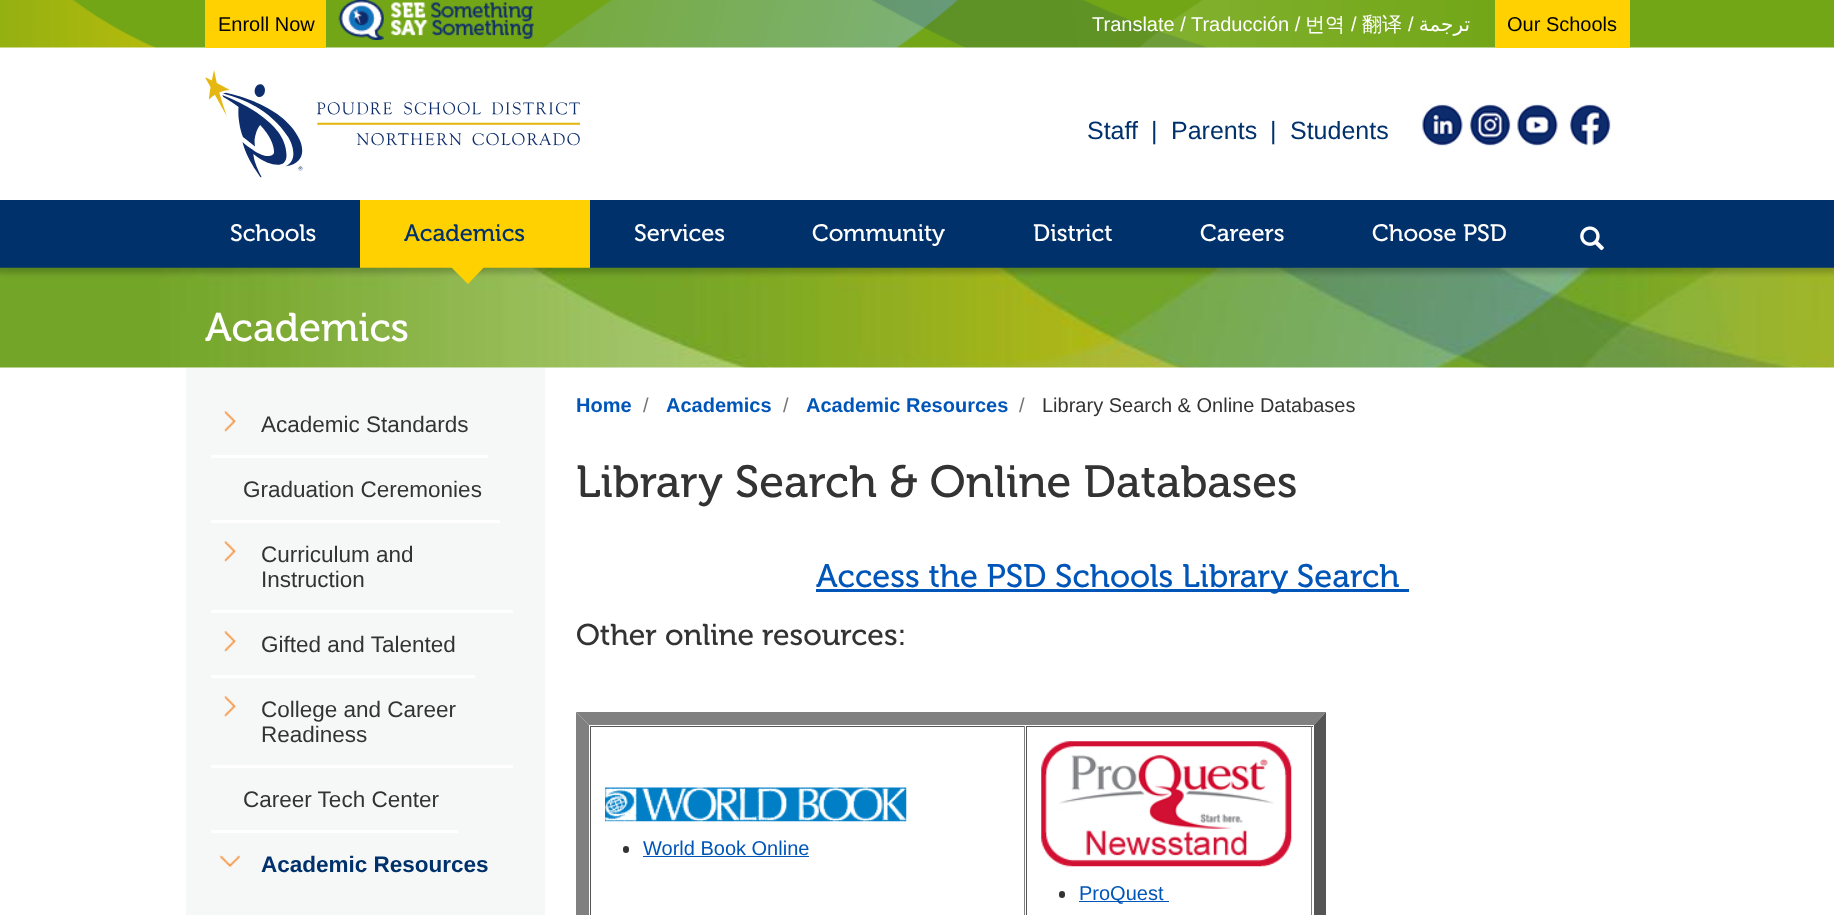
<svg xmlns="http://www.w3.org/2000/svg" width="1834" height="915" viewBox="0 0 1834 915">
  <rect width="100%" height="100%" fill="rgb(255,255,255)"/>
  <image x="0" y="0" width="1834" height="48" href="pic1.png"/>
  <rect x="205" y="0" width="121" height="48" fill="rgb(255,209,0)"/>
  <text x="218" y="31" font-family="Liberation Sans" font-size="20" fill="rgb(0,0,0)">Enroll Now</text>
  <image x="338" y="0" width="196" height="40" href="pic2.png"/>
  <text x="1092" y="31" font-family="Liberation Sans" font-size="20" fill="rgb(255,255,255)">Translate / Traducción /</text>
  <text x="1305" y="31" font-family="WenQuanYi Zen Hei" font-size="20" font-weight="500" fill="rgb(255,255,255)">번역</text>
  <text x="1351" y="31" font-family="Liberation Sans" font-size="20" fill="rgb(255,255,255)">/</text>
  <text x="1362" y="31" font-family="WenQuanYi Zen Hei" font-size="20" font-weight="500" fill="rgb(255,255,255)">翻译</text>
  <text x="1408" y="31" font-family="Liberation Sans" font-size="20" fill="rgb(255,255,255)">/</text>
  <text x="1470" y="31" font-family="DejaVu Sans" font-size="20" direction="rtl" fill="rgb(255,255,255)">ترجمة</text>
  <rect x="1495" y="0" width="135" height="48" fill="rgb(255,209,0)"/>
  <text x="1507" y="31" font-family="Liberation Sans" font-size="20" fill="rgb(0,0,0)">Our Schools</text>
  <image x="205" y="70" width="375" height="108" href="pic3.png"/>
  <g font-family="Liberation Sans" font-size="25" fill="rgb(0,49,107)">
    <text x="1087" y="139">Staff</text>
    <text x="1151" y="139">|</text>
    <text x="1171" y="139">Parents</text>
    <text x="1270" y="139">|</text>
    <text x="1290" y="139">Students</text>
  </g>
  <image x="1422" y="104" width="41" height="42" href="pic4.png"/>
  <image x="1469" y="104" width="42" height="42" href="pic5.png"/>
  <image x="1517" y="104" width="41" height="42" href="pic6.png"/>
  <image x="1569" y="104" width="42" height="42" href="pic7.png"/>
  <rect x="0" y="200" width="1834" height="68" fill="rgb(0,49,107)"/>
  <text x="230" y="241" font-family="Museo" font-size="23.75" fill="rgb(255,255,255)">Schools</text>
  <rect x="360" y="200" width="230" height="68" fill="rgb(255,209,1)"/>
  <text x="404" y="241" font-family="Museo" font-size="23.75" fill="rgb(0,49,107)">Academics</text>
  <image x="0" y="267" width="1834" height="101" href="pic9.png"/>
  <path d="M446 262H489L468 284Z" fill="rgb(255,209,0)"/>
  <g font-family="Museo" font-size="23.75" fill="rgb(255,255,255)">
    <text x="634" y="241">Services</text>
    <text x="812" y="241">Community</text>
    <text x="1033" y="241">District</text>
    <text x="1200" y="241">Careers</text>
    <text x="1372" y="241">Choose PSD</text>
  </g>
  <image x="1580" y="226" width="24" height="25" href="pic8.png"/>
  <text x="205" y="341" font-family="Museo" font-size="40" fill="rgb(255,255,255)">Academics</text>
  <rect x="186" y="368" width="359" height="547" fill="rgb(246,248,248)"/>
  <rect x="211" y="455" width="277" height="3" fill="rgb(255,255,255)"/>
  <image x="223" y="411" width="14" height="21" href="pic10.png"/>
  <text x="261" y="432" font-family="Liberation Sans" font-size="22.5" fill="rgb(51,51,51)">Academic Standards</text>
  <rect x="211" y="520" width="289" height="3" fill="rgb(255,255,255)"/>
  <text x="243" y="497" font-family="Liberation Sans" font-size="22.5" fill="rgb(51,51,51)">Graduation Ceremonies</text>
  <rect x="211" y="610" width="302" height="3" fill="rgb(255,255,255)"/>
  <image x="223" y="541" width="14" height="21" href="pic10.png"/>
  <g font-family="Liberation Sans" font-size="22.5" fill="rgb(51,51,51)">
    <text>
      <tspan x="261" y="562">Curriculum and</tspan>
      <tspan x="261" y="587">Instruction</tspan>
    </text>
  </g>
  <rect x="211" y="675" width="264" height="3" fill="rgb(255,255,255)"/>
  <image x="223" y="631" width="14" height="21" href="pic10.png"/>
  <text x="261" y="652" font-family="Liberation Sans" font-size="22.5" fill="rgb(51,51,51)">Gifted and Talented</text>
  <rect x="211" y="765" width="302" height="3" fill="rgb(255,255,255)"/>
  <image x="223" y="696" width="14" height="21" href="pic10.png"/>
  <g font-family="Liberation Sans" font-size="22.5" fill="rgb(51,51,51)">
    <text>
      <tspan x="261" y="717">College and Career</tspan>
      <tspan x="261" y="742">Readiness</tspan>
    </text>
  </g>
  <rect x="211" y="830" width="247" height="3" fill="rgb(255,255,255)"/>
  <text x="243" y="807" font-family="Liberation Sans" font-size="22.5" fill="rgb(51,51,51)">Career Tech Center</text>
  <image x="220" y="855" width="20" height="13" href="pic11.png"/>
  <text x="261" y="872" font-family="Liberation Sans" font-size="22.5" font-weight="bold" fill="rgb(0,49,107)">Academic Resources</text>
  <text x="576" y="412" font-family="Liberation Sans" font-size="20" font-weight="bold" fill="rgb(0,85,185)">Home</text>
  <text x="643" y="412" font-family="Liberation Sans" font-size="20" fill="rgb(117,117,117)">/</text>
  <text x="666" y="412" font-family="Liberation Sans" font-size="20" font-weight="bold" fill="rgb(0,85,185)">Academics</text>
  <text x="783" y="412" font-family="Liberation Sans" font-size="20" fill="rgb(117,117,117)">/</text>
  <text x="806" y="412" font-family="Liberation Sans" font-size="20" font-weight="bold" fill="rgb(0,85,185)">Academic Resources</text>
  <text x="1019" y="412" font-family="Liberation Sans" font-size="20" fill="rgb(117,117,117)">/</text>
  <text x="1042" y="412" font-family="Liberation Sans" font-size="20" fill="rgb(51,51,51)">Library Search &amp; Online Databases</text>
  <text x="576" y="497" font-family="Museo" font-size="45" fill="rgb(51,51,51)">Library Search &amp; Online Databases</text>
  <rect x="816" y="589" width="593" height="3" fill="rgb(0,85,185)"/>
  <text x="816" y="587" font-family="Museo" font-size="32.5" fill="rgb(0,85,185)">Access the PSD Schools Library Search</text>
  <text x="576" y="645" font-family="Museo" font-size="30" fill="rgb(51,51,51)">Other online resources:</text>
  <path d="M576 712H1326L1314 725H589Z" fill="rgb(128,128,128)"/>
  <path d="M1326 712V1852L1314 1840V725Z" fill="rgb(85,85,85)"/>
  <path d="M576 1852V712L589 725V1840Z" fill="rgb(128,128,128)"/>
  <rect x="590" y="726" width="435" height="1" fill="rgb(85,85,85)"/>
  <rect x="1024" y="726" width="1" height="189" fill="rgb(128,128,128)"/>
  <rect x="590" y="726" width="1" height="189" fill="rgb(85,85,85)"/>
  <image x="605" y="787" width="302" height="35" href="pic12.png"/>
  <rect x="623" y="846" width="6" height="7" rx="3" fill="rgb(51,51,51)"/>
  <text x="643" y="855" font-family="Liberation Sans" font-size="20" fill="rgb(0,85,185)">World Book Online</text>
  <rect x="643" y="856" width="166" height="1" fill="rgb(0,85,185)"/>
  <rect x="1026" y="726" width="287" height="1" fill="rgb(85,85,85)"/>
  <rect x="1311" y="726" width="1" height="189" fill="rgb(128,128,128)"/>
  <rect x="1026" y="726" width="1" height="189" fill="rgb(85,85,85)"/>
  <image x="1041" y="741" width="251" height="126" href="pic13.png"/>
  <rect x="1059" y="891" width="6" height="7" rx="3" fill="rgb(51,51,51)"/>
  <rect x="1079" y="901" width="90" height="1" fill="rgb(0,85,185)"/>
  <text x="1079" y="900" font-family="Liberation Sans" font-size="20" fill="rgb(0,85,185)">ProQuest</text>
</svg>
